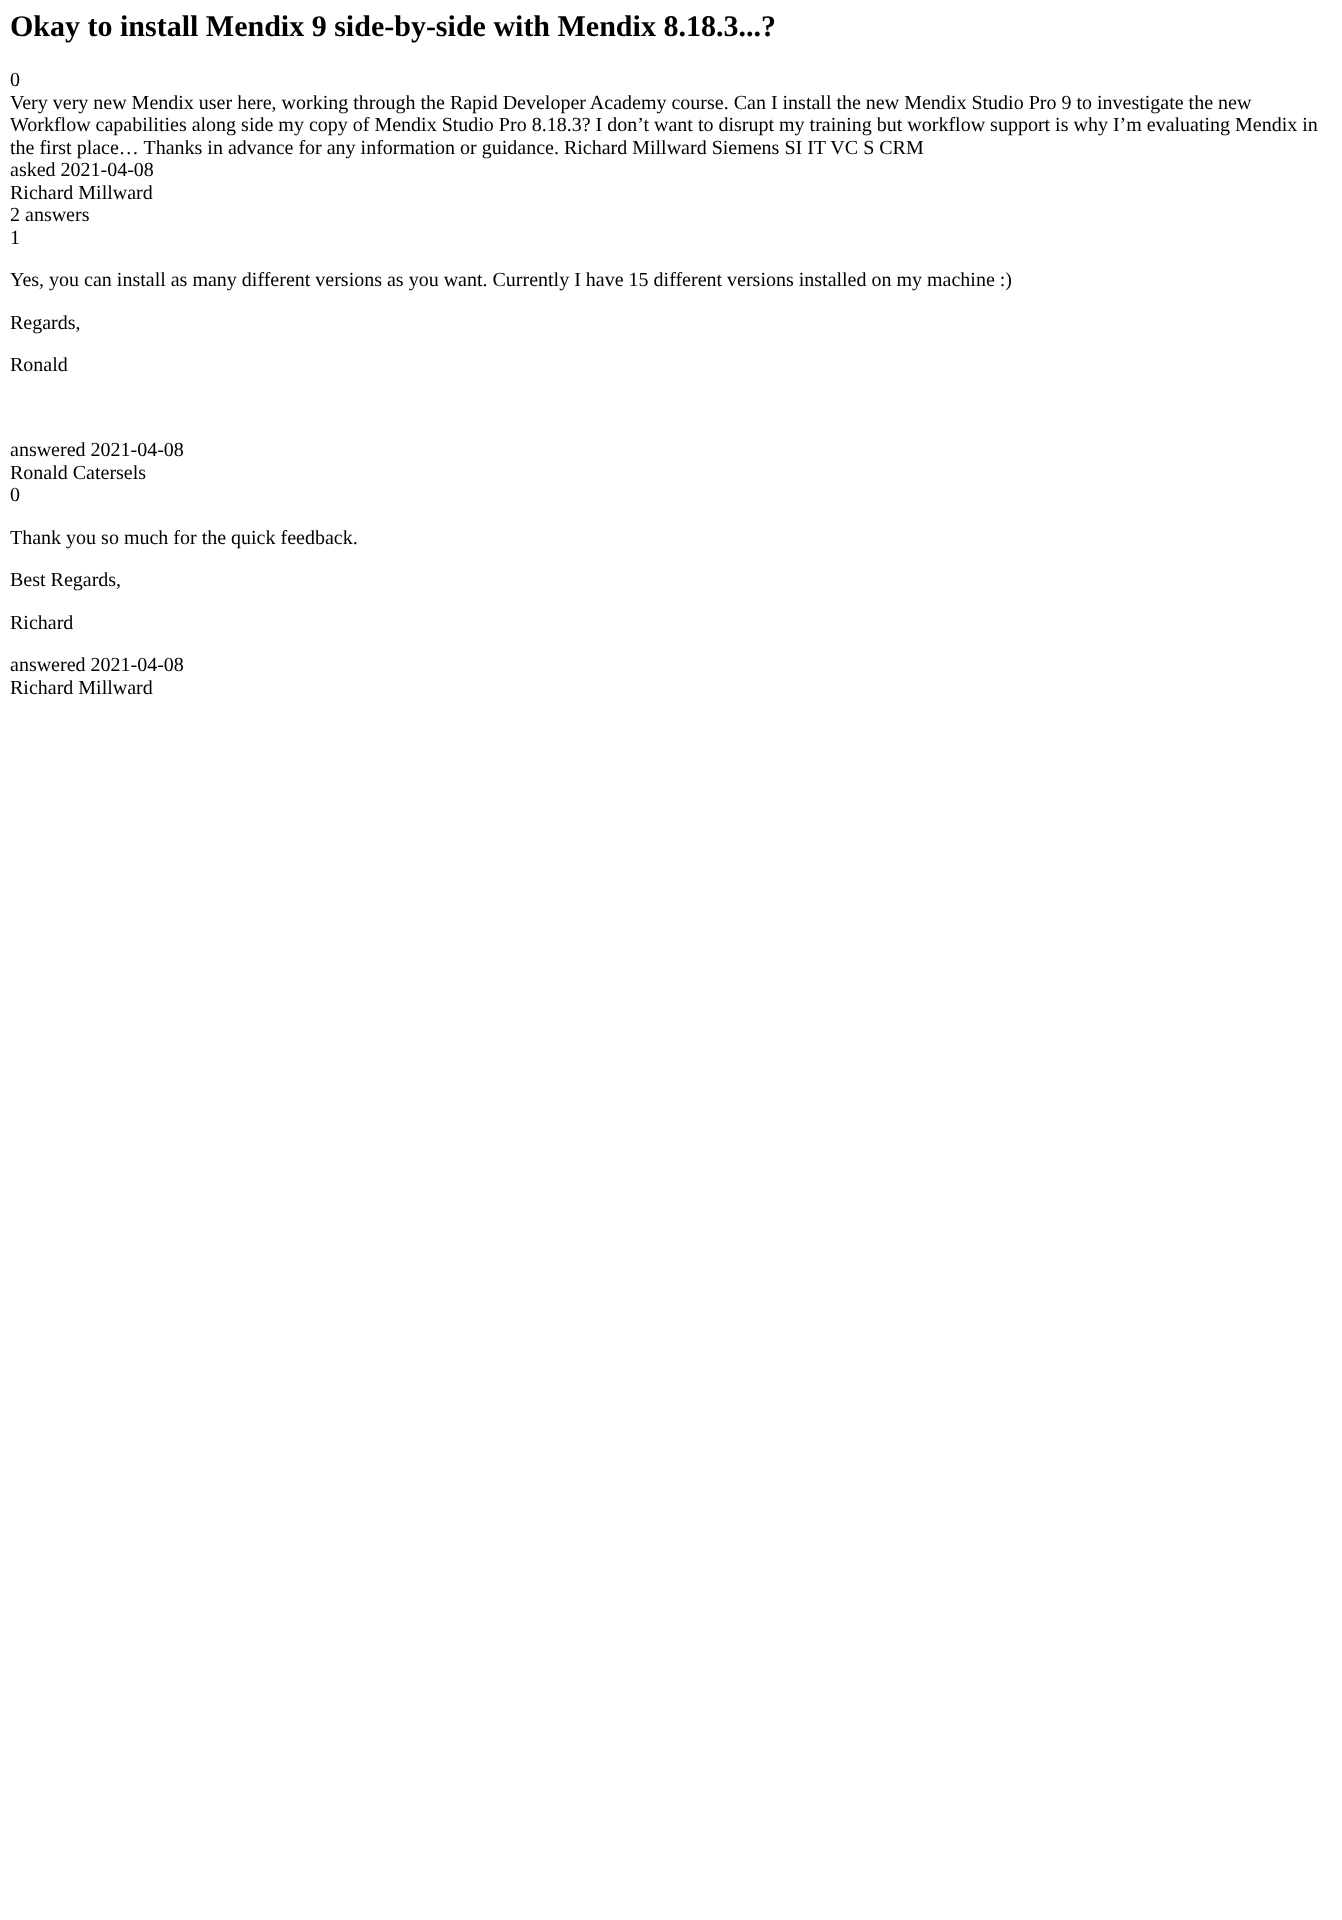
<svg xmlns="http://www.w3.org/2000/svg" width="1342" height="1920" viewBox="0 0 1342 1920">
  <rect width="100%" height="100%" fill="rgb(255,255,255)"/>
  <text x="10" y="36" font-family="Liberation Serif" font-size="30" font-weight="bold" fill="rgb(0,0,0)">Okay to install Mendix 9 side-by-side with Mendix 8.18.3...?</text>
  <g font-family="Liberation Serif" font-size="20" fill="rgb(0,0,0)">
    <text>
      <tspan x="10" y="86">0</tspan>
      <tspan x="10" y="109">Very very new Mendix user here, working through the Rapid Developer Academy course. Can I install the new Mendix Studio Pro 9 to investigate the new</tspan>
      <tspan x="10" y="131">Workflow capabilities along side my copy of Mendix Studio Pro 8.18.3? I don’t want to disrupt my training but workflow support is why I’m evaluating Mendix in</tspan>
      <tspan x="10" y="154">the first place… Thanks in advance for any information or guidance. Richard Millward Siemens SI IT VC S CRM</tspan>
      <tspan x="10" y="176">asked 2021-04-08</tspan>
      <tspan x="10" y="199">Richard Millward</tspan>
      <tspan x="10" y="221">2 answers</tspan>
      <tspan x="10" y="244">1</tspan>
    </text>
    <text x="10" y="286">Yes, you can install as many different versions as you want. Currently I have 15 different versions installed on my machine :)</text>
    <text x="10" y="329">Regards,</text>
    <text x="10" y="371">Ronald</text>
    <text>
      <tspan x="10" y="456">answered 2021-04-08</tspan>
      <tspan x="10" y="479">Ronald Catersels</tspan>
      <tspan x="10" y="501">0</tspan>
    </text>
    <text x="10" y="544">Thank you so much for the quick feedback.</text>
    <text x="10" y="586">Best Regards,</text>
    <text x="10" y="629">Richard</text>
    <text>
      <tspan x="10" y="671">answered 2021-04-08</tspan>
      <tspan x="10" y="694">Richard Millward</tspan>
    </text>
  </g>
</svg>
